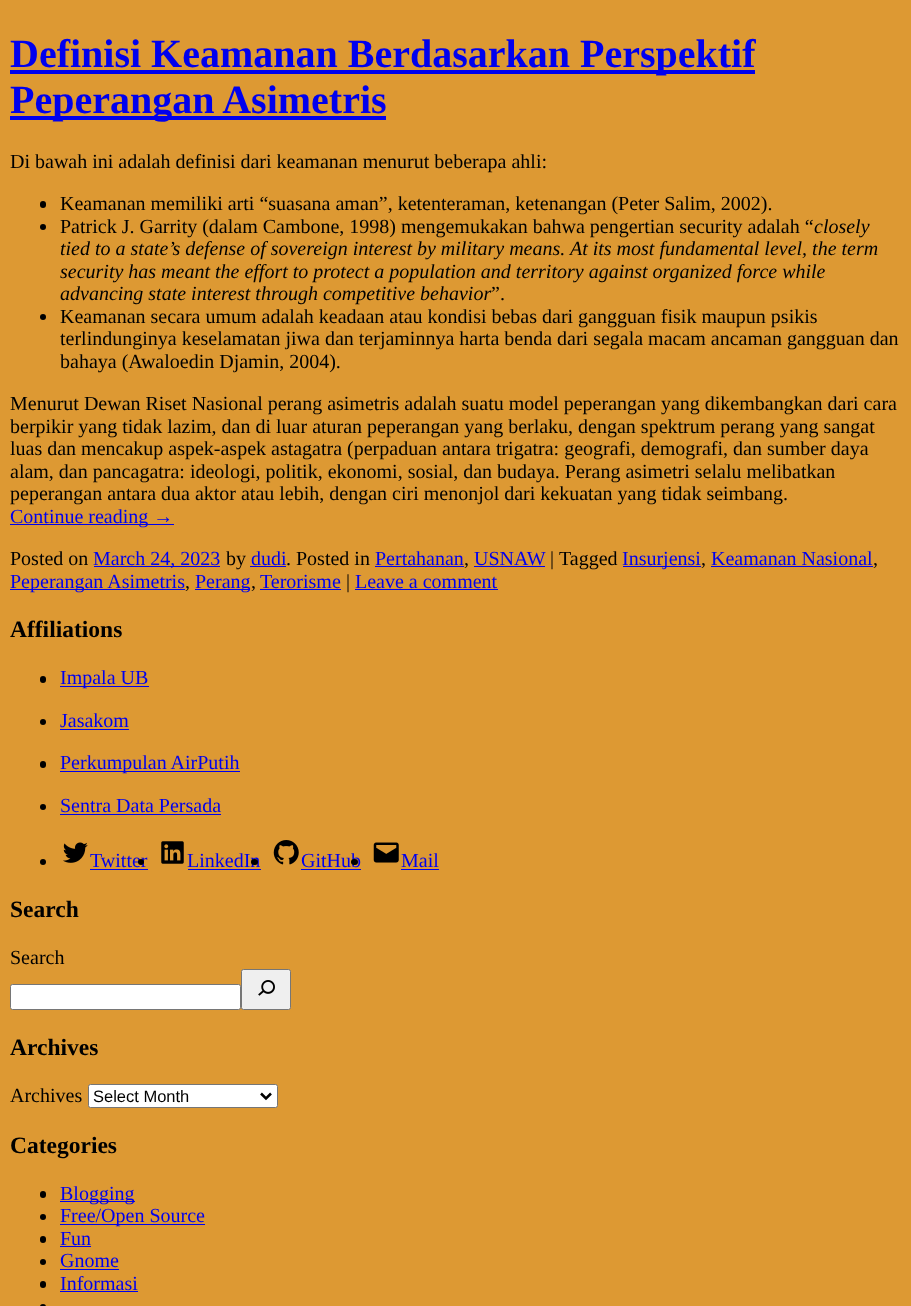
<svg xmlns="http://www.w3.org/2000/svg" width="911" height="1306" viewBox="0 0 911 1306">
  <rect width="100%" height="100%" fill="rgb(221,153,51)"/>
  <rect x="10" y="70" width="745" height="4" fill="rgb(0,0,238)"/>
  <text x="10" y="67" font-family="Liberation Serif" font-size="40" font-weight="bold" fill="rgb(0,0,238)">Definisi Keamanan Berdasarkan Perspektif</text>
  <rect x="10" y="116" width="376" height="4" fill="rgb(0,0,238)"/>
  <text x="10" y="113" font-family="Liberation Serif" font-size="40" font-weight="bold" fill="rgb(0,0,238)">Peperangan Asimetris</text>
  <text x="10" y="168" font-family="Liberation Serif" font-size="20" fill="rgb(0,0,0)">Di bawah ini adalah definisi dari keamanan menurut beberapa ahli:</text>
  <rect x="40" y="201" width="6" height="7" rx="3" fill="rgb(0,0,0)"/>
  <text x="60" y="210" font-family="Liberation Serif" font-size="20" fill="rgb(0,0,0)">Keamanan memiliki arti “suasana aman”, ketenteraman, ketenangan (Peter Salim, 2002).</text>
  <circle cx="43" cy="227" r="3" fill="rgb(0,0,0)"/>
  <text x="60" y="233" font-family="Liberation Serif" font-size="20" fill="rgb(0,0,0)">Patrick J. Garrity (dalam Cambone, 1998) mengemukakan bahwa pengertian security adalah “</text>
  <g font-family="Liberation Serif" font-size="20" font-style="italic" fill="rgb(0,0,0)">
    <text x="814" y="233">closely</text>
    <text>
      <tspan x="60" y="255">tied to a state’s defense of sovereign interest by military means. At its most fundamental level, the term</tspan>
      <tspan x="60" y="278">security has meant the effort to protect a population and territory against organized force while</tspan>
      <tspan x="60" y="300">advancing state interest through competitive behavior</tspan>
    </text>
  </g>
  <text x="491" y="300" font-family="Liberation Serif" font-size="20" fill="rgb(0,0,0)">”.</text>
  <circle cx="43" cy="317" r="3" fill="rgb(0,0,0)"/>
  <g font-family="Liberation Serif" font-size="20" fill="rgb(0,0,0)">
    <text>
      <tspan x="60" y="323">Keamanan secara umum adalah keadaan atau kondisi bebas dari gangguan fisik maupun psikis</tspan>
      <tspan x="60" y="345">terlindunginya keselamatan jiwa dan terjaminnya harta benda dari segala macam ancaman gangguan dan</tspan>
      <tspan x="60" y="368">bahaya (Awaloedin Djamin, 2004).</tspan>
    </text>
    <text>
      <tspan x="10" y="410">Menurut Dewan Riset Nasional perang asimetris adalah suatu model peperangan yang dikembangkan dari cara</tspan>
      <tspan x="10" y="433">berpikir yang tidak lazim, dan di luar aturan peperangan yang berlaku, dengan spektrum perang yang sangat</tspan>
      <tspan x="10" y="455">luas dan mencakup aspek-aspek astagatra (perpaduan antara trigatra: geografi, demografi, dan sumber daya</tspan>
      <tspan x="10" y="478">alam, dan pancagatra: ideologi, politik, ekonomi, sosial, dan budaya. Perang asimetri selalu melibatkan</tspan>
      <tspan x="10" y="500">peperangan antara dua aktor atau lebih, dengan ciri menonjol dari kekuatan yang tidak seimbang.</tspan>
    </text>
  </g>
  <rect x="10" y="524" width="164" height="1" fill="rgb(0,0,238)"/>
  <text x="10" y="523" font-family="Liberation Serif" font-size="20" fill="rgb(0,0,238)">Continue reading →</text>
  <text x="10" y="565" font-family="Liberation Serif" font-size="20" fill="rgb(0,0,0)">Posted on</text>
  <rect x="94" y="566" width="126" height="1" fill="rgb(0,0,238)"/>
  <text x="93" y="565" font-family="Liberation Serif" font-size="20" fill="rgb(0,0,238)">March 24, 2023</text>
  <text x="226" y="565" font-family="Liberation Serif" font-size="20" fill="rgb(0,0,0)">by</text>
  <rect x="250" y="566" width="36" height="1" fill="rgb(0,0,238)"/>
  <text x="251" y="565" font-family="Liberation Serif" font-size="20" fill="rgb(0,0,238)">dudi</text>
  <text x="286" y="565" font-family="Liberation Serif" font-size="20" fill="rgb(0,0,0)">. Posted in</text>
  <text x="375" y="565" font-family="Liberation Serif" font-size="20" fill="rgb(0,0,238)">Pertahanan</text>
  <text x="464" y="565" font-family="Liberation Serif" font-size="20" fill="rgb(0,0,0)">,</text>
  <rect x="375" y="566" width="89" height="1" fill="rgb(0,0,238)"/>
  <rect x="474" y="566" width="71" height="1" fill="rgb(0,0,238)"/>
  <text x="474" y="565" font-family="Liberation Serif" font-size="20" fill="rgb(0,0,238)">USNAW</text>
  <g font-family="Liberation Serif" font-size="20" fill="rgb(0,0,0)">
    <text x="550" y="565">|</text>
    <text x="559" y="565">Tagged</text>
  </g>
  <rect x="623" y="566" width="78" height="1" fill="rgb(0,0,238)"/>
  <text x="622" y="565" font-family="Liberation Serif" font-size="20" fill="rgb(0,0,238)">Insurjensi</text>
  <text x="701" y="565" font-family="Liberation Serif" font-size="20" fill="rgb(0,0,0)">,</text>
  <text x="711" y="565" font-family="Liberation Serif" font-size="20" fill="rgb(0,0,238)">Keamanan Nasional</text>
  <text x="873" y="565" font-family="Liberation Serif" font-size="20" fill="rgb(0,0,0)">,</text>
  <rect x="711" y="566" width="162" height="1" fill="rgb(0,0,238)"/>
  <rect x="10" y="589" width="175" height="1" fill="rgb(0,0,238)"/>
  <text x="10" y="588" font-family="Liberation Serif" font-size="20" fill="rgb(0,0,238)">Peperangan Asimetris</text>
  <text x="185" y="588" font-family="Liberation Serif" font-size="20" fill="rgb(0,0,0)">,</text>
  <rect x="195" y="589" width="55" height="1" fill="rgb(0,0,238)"/>
  <text x="195" y="588" font-family="Liberation Serif" font-size="20" fill="rgb(0,0,238)">Perang</text>
  <text x="251" y="588" font-family="Liberation Serif" font-size="20" fill="rgb(0,0,0)">,</text>
  <rect x="260" y="589" width="81" height="1" fill="rgb(0,0,238)"/>
  <text x="260" y="588" font-family="Liberation Serif" font-size="20" fill="rgb(0,0,238)">Terorisme</text>
  <text x="346" y="588" font-family="Liberation Serif" font-size="20" fill="rgb(0,0,0)">|</text>
  <text x="355" y="588" font-family="Liberation Serif" font-size="20" fill="rgb(0,0,238)">Leave a comment</text>
  <rect x="355" y="589" width="143" height="1" fill="rgb(0,0,238)"/>
  <text x="10" y="637" font-family="Liberation Serif" font-size="23.5" font-weight="bold" fill="rgb(0,0,0)">Affiliations</text>
  <rect x="40" y="676" width="6" height="7" rx="3" fill="rgb(0,0,0)"/>
  <rect x="60" y="686" width="89" height="1" fill="rgb(0,0,238)"/>
  <text x="60" y="684" font-family="Liberation Serif" font-size="20" fill="rgb(0,0,238)">Impala UB</text>
  <circle cx="43" cy="722" r="3" fill="rgb(0,0,0)"/>
  <text x="60" y="727" font-family="Liberation Serif" font-size="20" fill="rgb(0,0,238)">Jasakom</text>
  <rect x="60" y="729" width="69" height="1" fill="rgb(0,0,238)"/>
  <rect x="40" y="761" width="6" height="7" rx="3" fill="rgb(0,0,0)"/>
  <rect x="60" y="771" width="180" height="1" fill="rgb(0,0,238)"/>
  <text x="60" y="769" font-family="Liberation Serif" font-size="20" fill="rgb(0,0,238)">Perkumpulan AirPutih</text>
  <circle cx="43" cy="807" r="3" fill="rgb(0,0,0)"/>
  <text x="60" y="812" font-family="Liberation Serif" font-size="20" fill="rgb(0,0,238)">Sentra Data Persada</text>
  <rect x="60" y="814" width="161" height="1" fill="rgb(0,0,238)"/>
  <circle cx="43" cy="862" r="3" fill="rgb(0,0,0)"/>
  <image x="63" y="842" width="25" height="21" href="pic1.png"/>
  <text x="90" y="867" font-family="Liberation Serif" font-size="20" fill="rgb(0,0,238)">Twitter</text>
  <rect x="90" y="869" width="58" height="1" fill="rgb(0,0,238)"/>
  <circle cx="141" cy="862" r="3" fill="rgb(0,0,0)"/>
  <image x="161" y="841" width="23" height="23" href="pic2.png"/>
  <text x="187" y="867" font-family="Liberation Serif" font-size="20" fill="rgb(0,0,238)">LinkedIn</text>
  <rect x="188" y="869" width="73" height="1" fill="rgb(0,0,238)"/>
  <rect x="251" y="859" width="7" height="6" rx="3" fill="rgb(0,0,0)"/>
  <image x="273" y="840" width="26" height="25" href="pic3.png"/>
  <text x="301" y="867" font-family="Liberation Serif" font-size="20" fill="rgb(0,0,238)">GitHub</text>
  <rect x="301" y="869" width="60" height="1" fill="rgb(0,0,238)"/>
  <rect x="351" y="859" width="7" height="6" rx="3" fill="rgb(0,0,0)"/>
  <image x="373" y="842" width="26" height="21" href="pic4.png"/>
  <text x="401" y="867" font-family="Liberation Serif" font-size="20" fill="rgb(0,0,238)">Mail</text>
  <rect x="401" y="869" width="38" height="1" fill="rgb(0,0,238)"/>
  <text x="10" y="917" font-family="Liberation Serif" font-size="23.5" font-weight="bold" fill="rgb(0,0,0)">Search</text>
  <text x="10" y="964" font-family="Liberation Serif" font-size="20" fill="rgb(0,0,0)">Search</text>
  <rect x="10.5" y="984.5" width="230" height="25" rx="2" fill="rgb(255,255,255)" stroke="rgb(118,118,118)"/>
  <rect x="241.5" y="969.5" width="49" height="40" rx="2" fill="rgb(239,239,239)" stroke="rgb(118,118,118)"/>
  <image x="258" y="980" width="17" height="16" href="pic5.png"/>
  <text x="10" y="1055" font-family="Liberation Serif" font-size="23.5" font-weight="bold" fill="rgb(0,0,0)">Archives</text>
  <text x="10" y="1102" font-family="Liberation Serif" font-size="20" fill="rgb(0,0,0)">Archives</text>
  <rect x="88.5" y="1084.5" width="189" height="23" rx="2" fill="rgb(255,255,255)" stroke="rgb(118,118,118)"/>
  <path d="M261 1093.5L266 1098.5L271 1093.5" fill="none" stroke="rgb(0,0,0)" stroke-width="2.5"/>
  <text x="93" y="1102" font-family="Liberation Sans" font-size="16.5" fill="rgb(0,0,0)">Select Month</text>
  <text x="10" y="1153" font-family="Liberation Serif" font-size="23.5" font-weight="bold" fill="rgb(0,0,0)">Categories</text>
  <rect x="40" y="1191" width="6" height="7" rx="3" fill="rgb(0,0,0)"/>
  <rect x="60" y="1201" width="75" height="1" fill="rgb(0,0,238)"/>
  <text x="60" y="1200" font-family="Liberation Serif" font-size="20" fill="rgb(0,0,238)">Blogging</text>
  <circle cx="43" cy="1217" r="3" fill="rgb(0,0,0)"/>
  <rect x="60" y="1224" width="145" height="1" fill="rgb(0,0,238)"/>
  <text x="60" y="1222" font-family="Liberation Serif" font-size="20" fill="rgb(0,0,238)">Free/Open Source</text>
  <rect x="40" y="1236" width="6" height="7" rx="3" fill="rgb(0,0,0)"/>
  <text x="60" y="1245" font-family="Liberation Serif" font-size="20" fill="rgb(0,0,238)">Fun</text>
  <rect x="60" y="1246" width="31" height="1" fill="rgb(0,0,238)"/>
  <circle cx="43" cy="1262" r="3" fill="rgb(0,0,0)"/>
  <text x="60" y="1267" font-family="Liberation Serif" font-size="20" fill="rgb(0,0,238)">Gnome</text>
  <rect x="60" y="1269" width="59" height="1" fill="rgb(0,0,238)"/>
  <rect x="40" y="1281" width="6" height="7" rx="3" fill="rgb(0,0,0)"/>
  <text x="60" y="1290" font-family="Liberation Serif" font-size="20" fill="rgb(0,0,238)">Informasi</text>
  <rect x="60" y="1291" width="78" height="1" fill="rgb(0,0,238)"/>
  <rect x="40" y="1304" width="6" height="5" rx="3" fill="rgb(0,0,0)"/>
</svg>
